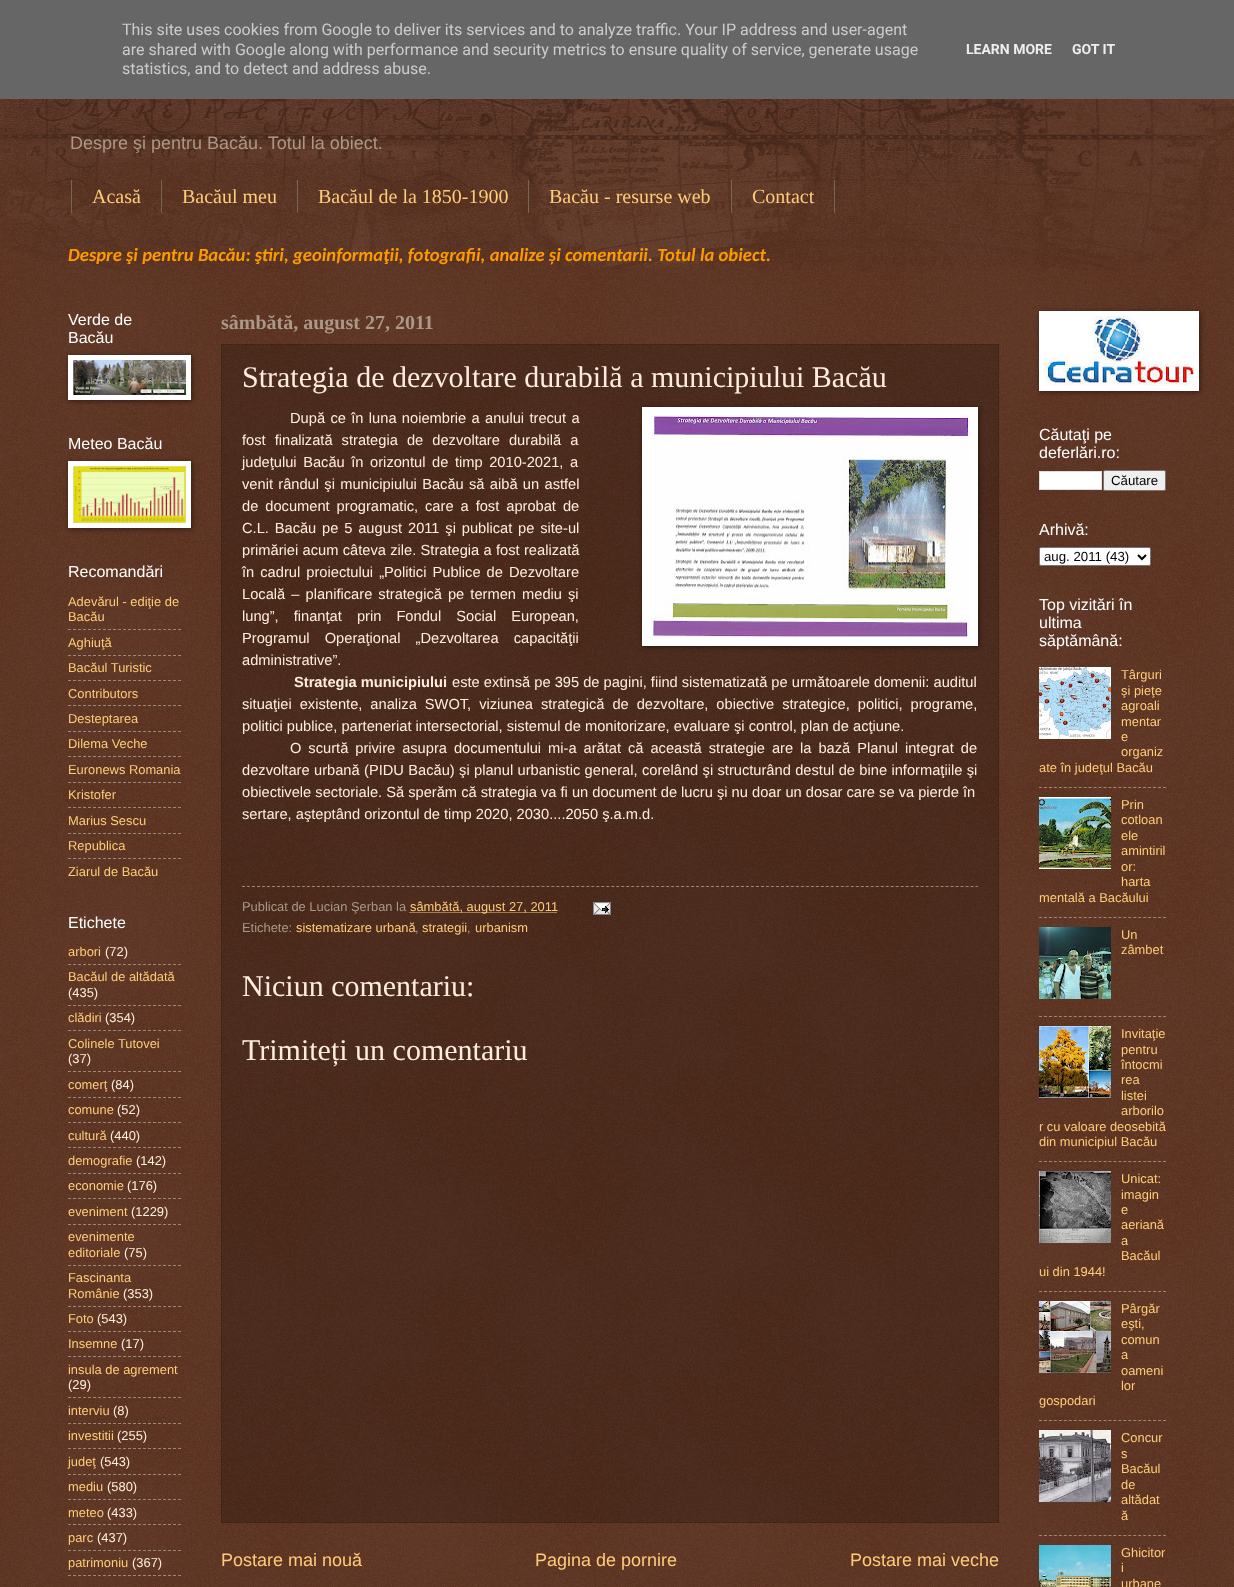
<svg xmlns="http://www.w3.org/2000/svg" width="1234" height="1587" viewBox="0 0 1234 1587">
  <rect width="100%" height="100%" fill="rgb(68,21,0)"/>
  <image x="0" y="99" width="1234" height="1488" href="pic1.png"/>
  <rect x="0" y="0" width="1234" height="99" fill="rgb(102,102,102)"/>
  <g font-family="Roboto" font-size="16" fill="rgb(204,204,204)">
    <text>
      <tspan x="122" y="35">This site uses cookies from Google to deliver its services and to analyze traffic. Your IP address and user-agent</tspan>
      <tspan x="122" y="55">are shared with Google along with performance and security metrics to ensure quality of service, generate usage</tspan>
      <tspan x="122" y="74">statistics, and to detect and address abuse.</tspan>
    </text>
  </g>
  <g font-family="Roboto" font-size="14" font-weight="bold" fill="rgb(238,238,238)">
    <text x="966" y="54">LEARN MORE</text>
    <text x="1072" y="54">GOT IT</text>
  </g>
  <image x="0" y="99" width="1234" height="171" href="pic2.png"/>
  <text x="70" y="149" font-family="Liberation Sans" font-size="18" fill="rgb(170,153,136)">Despre şi pentru Bacău. Totul la obiect.</text>
  <rect x="161" y="180" width="1" height="33" fill="rgb(119,102,85)"/>
  <rect x="71" y="180" width="1" height="33" fill="rgb(119,102,85)"/>
  <text x="92" y="203" font-family="Liberation Serif" font-size="20" fill="rgb(255,204,119)">Acasă</text>
  <rect x="297" y="180" width="1" height="33" fill="rgb(119,102,85)"/>
  <text x="182" y="203" font-family="Liberation Serif" font-size="20" fill="rgb(255,204,119)">Bacăul meu</text>
  <rect x="528" y="180" width="1" height="33" fill="rgb(119,102,85)"/>
  <text x="318" y="203" font-family="Liberation Serif" font-size="20" fill="rgb(255,204,119)">Bacăul de la 1850-1900</text>
  <rect x="731" y="180" width="1" height="33" fill="rgb(119,102,85)"/>
  <text x="549" y="203" font-family="Liberation Serif" font-size="20" fill="rgb(255,204,119)">Bacău - resurse web</text>
  <rect x="834" y="180" width="1" height="33" fill="rgb(119,102,85)"/>
  <text x="752" y="203" font-family="Liberation Serif" font-size="20" fill="rgb(255,204,119)">Contact</text>
  <text x="68" y="261" font-family="Carlito" font-size="18.65" font-weight="bold" font-style="italic" fill="rgb(255,153,0)">Despre şi pentru Bacău: ştiri, geoinformaţii, fotografii, analize și comentarii. Totul la obiect.</text>
  <g font-family="Arimo" font-size="16" fill="rgb(255,255,255)">
    <text>
      <tspan x="68" y="325">Verde de</tspan>
      <tspan x="68" y="343">Bacău</tspan>
    </text>
  </g>
  <rect x="69" y="356" width="123" height="45" fill="rgba(0,0,0,0.5)" filter="blur(2.5px)"/>
  <rect x="68" y="355" width="123" height="45" fill="rgb(255,255,255)"/>
  <image x="73" y="360" width="113" height="35" href="pic3.png"/>
  <text x="68" y="449" font-family="Arimo" font-size="16" fill="rgb(255,255,255)">Meteo Bacău</text>
  <rect x="69" y="462" width="123" height="67" fill="rgba(0,0,0,0.5)" filter="blur(2.5px)"/>
  <rect x="68" y="461" width="123" height="67" fill="rgb(255,255,255)"/>
  <image x="73" y="466" width="113" height="57" href="pic4.png"/>
  <text x="68" y="577" font-family="Arimo" font-size="16" fill="rgb(255,255,255)">Recomandări</text>
  <g font-family="Liberation Sans" font-size="12.9" fill="rgb(255,204,119)">
    <text>
      <tspan x="68" y="606">Adevărul - ediţie de</tspan>
      <tspan x="68" y="621">Bacău</tspan>
    </text>
  </g>
  <path d="M68 629.5H181" fill="none" stroke="rgb(153,136,119)" stroke-dasharray="3 2"/>
  <text x="68" y="647" font-family="Liberation Sans" font-size="12.9" fill="rgb(255,204,119)">Aghiuţă</text>
  <path d="M68 655.5H181" fill="none" stroke="rgb(153,136,119)" stroke-dasharray="3 2"/>
  <text x="68" y="672" font-family="Liberation Sans" font-size="12.9" fill="rgb(255,204,119)">Bacăul Turistic</text>
  <path d="M68 680.5H181" fill="none" stroke="rgb(153,136,119)" stroke-dasharray="3 2"/>
  <text x="68" y="698" font-family="Liberation Sans" font-size="12.9" fill="rgb(255,204,119)">Contributors</text>
  <path d="M68 705.5H181" fill="none" stroke="rgb(153,136,119)" stroke-dasharray="3 2"/>
  <text x="68" y="723" font-family="Liberation Sans" font-size="12.9" fill="rgb(255,204,119)">Desteptarea</text>
  <path d="M68 731.5H181" fill="none" stroke="rgb(153,136,119)" stroke-dasharray="3 2"/>
  <text x="68" y="748" font-family="Liberation Sans" font-size="12.9" fill="rgb(255,204,119)">Dilema Veche</text>
  <path d="M68 756.5H181" fill="none" stroke="rgb(153,136,119)" stroke-dasharray="3 2"/>
  <text x="68" y="774" font-family="Liberation Sans" font-size="12.9" fill="rgb(255,204,119)">Euronews Romania</text>
  <path d="M68 782.5H181" fill="none" stroke="rgb(153,136,119)" stroke-dasharray="3 2"/>
  <text x="68" y="799" font-family="Liberation Sans" font-size="12.9" fill="rgb(255,204,119)">Kristofer</text>
  <path d="M68 807.5H181" fill="none" stroke="rgb(153,136,119)" stroke-dasharray="3 2"/>
  <text x="68" y="825" font-family="Liberation Sans" font-size="12.9" fill="rgb(255,204,119)">Marius Sescu</text>
  <path d="M68 833.5H181" fill="none" stroke="rgb(153,136,119)" stroke-dasharray="3 2"/>
  <text x="68" y="850" font-family="Liberation Sans" font-size="12.9" fill="rgb(255,204,119)">Republica</text>
  <path d="M68 858.5H181" fill="none" stroke="rgb(153,136,119)" stroke-dasharray="3 2"/>
  <text x="68" y="876" font-family="Liberation Sans" font-size="12.9" fill="rgb(255,204,119)">Ziarul de Bacău</text>
  <text x="68" y="928" font-family="Arimo" font-size="16" fill="rgb(255,255,255)">Etichete</text>
  <text x="68" y="956" font-family="Liberation Sans" font-size="12.9" fill="rgb(255,204,119)">arbori</text>
  <text x="105" y="956" font-family="Liberation Sans" font-size="12.9" fill="rgb(255,238,221)">(72)</text>
  <path d="M68 964.5H181" fill="none" stroke="rgb(153,136,119)" stroke-dasharray="3 2"/>
  <text x="68" y="981" font-family="Liberation Sans" font-size="12.9" fill="rgb(255,204,119)">Bacăul de altădată</text>
  <text x="68" y="997" font-family="Liberation Sans" font-size="12.9" fill="rgb(255,238,221)">(435)</text>
  <path d="M68 1005.5H181" fill="none" stroke="rgb(153,136,119)" stroke-dasharray="3 2"/>
  <text x="68" y="1022" font-family="Liberation Sans" font-size="12.9" fill="rgb(255,204,119)">clădiri</text>
  <text x="105" y="1022" font-family="Liberation Sans" font-size="12.9" fill="rgb(255,238,221)">(354)</text>
  <path d="M68 1030.5H181" fill="none" stroke="rgb(153,136,119)" stroke-dasharray="3 2"/>
  <text x="68" y="1048" font-family="Liberation Sans" font-size="12.9" fill="rgb(255,204,119)">Colinele Tutovei</text>
  <text x="68" y="1063" font-family="Liberation Sans" font-size="12.9" fill="rgb(255,238,221)">(37)</text>
  <path d="M68 1071.5H181" fill="none" stroke="rgb(153,136,119)" stroke-dasharray="3 2"/>
  <text x="68" y="1089" font-family="Liberation Sans" font-size="12.9" fill="rgb(255,204,119)">comerţ</text>
  <text x="111" y="1089" font-family="Liberation Sans" font-size="12.9" fill="rgb(255,238,221)">(84)</text>
  <path d="M68 1097.5H181" fill="none" stroke="rgb(153,136,119)" stroke-dasharray="3 2"/>
  <text x="68" y="1114" font-family="Liberation Sans" font-size="12.9" fill="rgb(255,204,119)">comune</text>
  <text x="117" y="1114" font-family="Liberation Sans" font-size="12.9" fill="rgb(255,238,221)">(52)</text>
  <path d="M68 1122.5H181" fill="none" stroke="rgb(153,136,119)" stroke-dasharray="3 2"/>
  <text x="68" y="1140" font-family="Liberation Sans" font-size="12.9" fill="rgb(255,204,119)">cultură</text>
  <text x="110" y="1140" font-family="Liberation Sans" font-size="12.9" fill="rgb(255,238,221)">(440)</text>
  <path d="M68 1147.5H181" fill="none" stroke="rgb(153,136,119)" stroke-dasharray="3 2"/>
  <text x="68" y="1165" font-family="Liberation Sans" font-size="12.9" fill="rgb(255,204,119)">demografie</text>
  <text x="136" y="1165" font-family="Liberation Sans" font-size="12.9" fill="rgb(255,238,221)">(142)</text>
  <path d="M68 1173.5H181" fill="none" stroke="rgb(153,136,119)" stroke-dasharray="3 2"/>
  <text x="68" y="1190" font-family="Liberation Sans" font-size="12.9" fill="rgb(255,204,119)">economie</text>
  <text x="127" y="1190" font-family="Liberation Sans" font-size="12.9" fill="rgb(255,238,221)">(176)</text>
  <path d="M68 1198.5H181" fill="none" stroke="rgb(153,136,119)" stroke-dasharray="3 2"/>
  <text x="68" y="1216" font-family="Liberation Sans" font-size="12.9" fill="rgb(255,204,119)">eveniment</text>
  <text x="131" y="1216" font-family="Liberation Sans" font-size="12.9" fill="rgb(255,238,221)">(1229)</text>
  <path d="M68 1224.5H181" fill="none" stroke="rgb(153,136,119)" stroke-dasharray="3 2"/>
  <g font-family="Liberation Sans" font-size="12.9" fill="rgb(255,204,119)">
    <text>
      <tspan x="68" y="1241">evenimente</tspan>
      <tspan x="68" y="1257">editoriale</tspan>
    </text>
  </g>
  <text x="124" y="1257" font-family="Liberation Sans" font-size="12.9" fill="rgb(255,238,221)">(75)</text>
  <path d="M68 1265.5H181" fill="none" stroke="rgb(153,136,119)" stroke-dasharray="3 2"/>
  <g font-family="Liberation Sans" font-size="12.9" fill="rgb(255,204,119)">
    <text>
      <tspan x="68" y="1282">Fascinanta</tspan>
      <tspan x="68" y="1298">Românie</tspan>
    </text>
  </g>
  <text x="123" y="1298" font-family="Liberation Sans" font-size="12.9" fill="rgb(255,238,221)">(353)</text>
  <path d="M68 1306.5H181" fill="none" stroke="rgb(153,136,119)" stroke-dasharray="3 2"/>
  <text x="68" y="1323" font-family="Liberation Sans" font-size="12.9" fill="rgb(255,204,119)">Foto</text>
  <text x="97" y="1323" font-family="Liberation Sans" font-size="12.9" fill="rgb(255,238,221)">(543)</text>
  <path d="M68 1331.5H181" fill="none" stroke="rgb(153,136,119)" stroke-dasharray="3 2"/>
  <text x="68" y="1348" font-family="Liberation Sans" font-size="12.9" fill="rgb(255,204,119)">Insemne</text>
  <text x="121" y="1348" font-family="Liberation Sans" font-size="12.9" fill="rgb(255,238,221)">(17)</text>
  <path d="M68 1356.5H181" fill="none" stroke="rgb(153,136,119)" stroke-dasharray="3 2"/>
  <text x="68" y="1374" font-family="Liberation Sans" font-size="12.9" fill="rgb(255,204,119)">insula de agrement</text>
  <text x="68" y="1389" font-family="Liberation Sans" font-size="12.9" fill="rgb(255,238,221)">(29)</text>
  <path d="M68 1397.5H181" fill="none" stroke="rgb(153,136,119)" stroke-dasharray="3 2"/>
  <text x="68" y="1415" font-family="Liberation Sans" font-size="12.9" fill="rgb(255,204,119)">interviu</text>
  <text x="113" y="1415" font-family="Liberation Sans" font-size="12.9" fill="rgb(255,238,221)">(8)</text>
  <path d="M68 1423.5H181" fill="none" stroke="rgb(153,136,119)" stroke-dasharray="3 2"/>
  <text x="68" y="1440" font-family="Liberation Sans" font-size="12.9" fill="rgb(255,204,119)">investitii</text>
  <text x="117" y="1440" font-family="Liberation Sans" font-size="12.9" fill="rgb(255,238,221)">(255)</text>
  <path d="M68 1448.5H181" fill="none" stroke="rgb(153,136,119)" stroke-dasharray="3 2"/>
  <text x="68" y="1466" font-family="Liberation Sans" font-size="12.9" fill="rgb(255,204,119)">judeţ</text>
  <text x="100" y="1466" font-family="Liberation Sans" font-size="12.9" fill="rgb(255,238,221)">(543)</text>
  <path d="M68 1474.5H181" fill="none" stroke="rgb(153,136,119)" stroke-dasharray="3 2"/>
  <text x="68" y="1491" font-family="Liberation Sans" font-size="12.9" fill="rgb(255,204,119)">mediu</text>
  <text x="107" y="1491" font-family="Liberation Sans" font-size="12.9" fill="rgb(255,238,221)">(580)</text>
  <path d="M68 1499.5H181" fill="none" stroke="rgb(153,136,119)" stroke-dasharray="3 2"/>
  <text x="68" y="1517" font-family="Liberation Sans" font-size="12.9" fill="rgb(255,204,119)">meteo</text>
  <text x="107" y="1517" font-family="Liberation Sans" font-size="12.9" fill="rgb(255,238,221)">(433)</text>
  <path d="M68 1524.5H181" fill="none" stroke="rgb(153,136,119)" stroke-dasharray="3 2"/>
  <text x="68" y="1542" font-family="Liberation Sans" font-size="12.9" fill="rgb(255,204,119)">parc</text>
  <text x="97" y="1542" font-family="Liberation Sans" font-size="12.9" fill="rgb(255,238,221)">(437)</text>
  <path d="M68 1550.5H181" fill="none" stroke="rgb(153,136,119)" stroke-dasharray="3 2"/>
  <text x="68" y="1567" font-family="Liberation Sans" font-size="12.9" fill="rgb(255,204,119)">patrimoniu</text>
  <text x="132" y="1567" font-family="Liberation Sans" font-size="12.9" fill="rgb(255,238,221)">(367)</text>
  <path d="M68 1575.5H181" fill="none" stroke="rgb(153,136,119)" stroke-dasharray="3 2"/>
  <text x="221" y="329" font-family="Liberation Serif" font-size="20" font-weight="bold" fill="rgb(170,153,136)">sâmbătă, august 27, 2011</text>
  <rect x="221" y="344" width="778" height="1179" fill="rgba(0,0,0,0.2)"/>
  <path d="M221 344.5H999" fill="none" stroke="rgb(51,34,17)" stroke-dasharray="1 1"/>
  <path d="M998.5 344V1523" fill="none" stroke="rgb(51,34,17)" stroke-dasharray="1 1"/>
  <path d="M221 1522.5H999" fill="none" stroke="rgb(51,34,17)" stroke-dasharray="1 1"/>
  <path d="M221.5 344V1523" fill="none" stroke="rgb(51,34,17)" stroke-dasharray="1 1"/>
  <text x="242" y="387" font-family="Liberation Serif" font-size="30" fill="rgb(255,238,221)">Strategia de dezvoltare durabilă a municipiului Bacău</text>
  <g font-family="Liberation Sans" font-size="14.67" fill="rgb(255,238,221)">
    <text x="290" y="423">Dup</text>
    <text x="317" y="423" word-spacing="1.25">ă ce în luna noiembrie a anului trecut a</text>
  </g>
  <rect x="643" y="408" width="336" height="239" fill="rgba(0,0,0,0.5)" filter="blur(2.5px)"/>
  <rect x="642" y="407" width="336" height="239" fill="rgb(255,255,255)"/>
  <image x="650" y="415" width="320" height="223" href="pic5.png"/>
  <g font-family="Liberation Sans" font-size="14.67" fill="rgb(255,238,221)">
    <text>
      <tspan x="242" y="445" word-spacing="5">fost finalizată strategia de dezvoltare durabilă a</tspan>
      <tspan x="242" y="467" word-spacing="2.5">judeţului Bacău în orizontul de timp 2010-2021, a</tspan>
      <tspan x="242" y="489" word-spacing="1.25">venit rândul şi municipiului Bacău să aibă un astfel</tspan>
      <tspan x="242" y="511" word-spacing="2.9">de document programatic, care a fost aprobat de</tspan>
      <tspan x="242" y="533" word-spacing="1.75">C.L. Bacău pe 5 august 2011 şi publicat pe site-ul</tspan>
      <tspan x="242" y="555" word-spacing="0.25">primăriei acum câteva zile. Strategia a fost realizată</tspan>
      <tspan x="242" y="577" word-spacing="2">în cadrul proiectului „Politici Publice de Dezvoltare</tspan>
      <tspan x="242" y="599" word-spacing="2">Locală – planificare strategică pe termen mediu şi</tspan>
      <tspan x="242" y="621" word-spacing="11">lung”, finanţat prin Fondul Social European,</tspan>
      <tspan x="242" y="643" word-spacing="11">Programul Operaţional „Dezvoltarea capacităţii</tspan>
      <tspan x="242" y="665">administrative”.</tspan>
    </text>
  </g>
  <text x="294" y="687" font-family="Liberation Sans" font-size="14.67" font-weight="bold" fill="rgb(255,238,221)">Strategia municipiului</text>
  <g font-family="Liberation Sans" font-size="14.67" fill="rgb(255,238,221)">
    <text x="452" y="687">este extinsă pe 395 de pagini, fiind sistematizată pe următoarele domenii: auditul</text>
    <text>
      <tspan x="242" y="709" word-spacing="3.9">situaţiei existente, analiza SWOT, viziunea strategică de dezvoltare, obiective strategice, politici, programe,</tspan>
      <tspan x="242" y="731">politici publice, parteneriat intersectorial, sistemul de monitorizare, evaluare şi control, plan de acţiune.</tspan>
    </text>
    <text x="290" y="753" word-spacing="2.9">O scurtă privire asupra documentului mi-a arătat că această strategie are la bază Planul integrat de</text>
    <text>
      <tspan x="242" y="775" word-spacing="0.3">dezvoltare urbană (PIDU Bacău) şi planul urbanistic general, corelând şi structurând destul de bine informaţiile şi</tspan>
      <tspan x="242" y="797">obiectivele sectoriale. Să sperăm că strategia va fi un document de lucru şi nu doar un dosar care se va pierde în</tspan>
      <tspan x="242" y="819">sertare, aşteptând orizontul de timp 2020, 2030....2050 ş.a.m.d.</tspan>
    </text>
  </g>
  <path d="M242 886.5H978" fill="none" stroke="rgb(153,136,119)" stroke-dasharray="3 1.99"/>
  <text x="242" y="911" font-family="Liberation Sans" font-size="12.9" fill="rgb(170,153,136)">Publicat de Lucian Şerban la</text>
  <path d="M409.5 912.5H557.5" fill="none" stroke="rgb(255,204,119)" stroke-dasharray="1 1"/>
  <text x="410" y="911" font-family="Liberation Sans" font-size="12.9" fill="rgb(255,204,119)">sâmbătă, august 27, 2011</text>
  <image x="593" y="902" width="18" height="13" href="pic6.png"/>
  <text x="242" y="932" font-family="Liberation Sans" font-size="12.9" fill="rgb(170,153,136)">Etichete:</text>
  <text x="296" y="932" font-family="Liberation Sans" font-size="12.9" fill="rgb(255,204,119)">sistematizare urbană</text>
  <text x="415" y="932" font-family="Liberation Sans" font-size="12.9" fill="rgb(170,153,136)">,</text>
  <text x="422" y="932" font-family="Liberation Sans" font-size="12.9" fill="rgb(255,204,119)">strategii</text>
  <text x="467" y="932" font-family="Liberation Sans" font-size="12.9" fill="rgb(170,153,136)">,</text>
  <text x="475" y="932" font-family="Liberation Sans" font-size="12.9" fill="rgb(255,204,119)">urbanism</text>
  <g font-family="Liberation Serif" font-size="30" fill="rgb(255,238,221)">
    <text x="242" y="996">Niciun comentariu:</text>
    <text x="242" y="1060">Trimiteți un comentariu</text>
  </g>
  <g font-family="Liberation Sans" font-size="18" fill="rgb(255,204,119)">
    <text x="221" y="1566">Postare mai nouă</text>
    <text x="535" y="1566">Pagina de pornire</text>
    <text x="850" y="1566">Postare mai veche</text>
  </g>
  <rect x="1040" y="312" width="160" height="80" fill="rgba(0,0,0,0.5)" filter="blur(2.5px)"/>
  <rect x="1039" y="311" width="160" height="80" fill="rgb(255,255,255)"/>
  <image x="1044" y="316" width="150" height="70" href="pic7.png"/>
  <g font-family="Arimo" font-size="16" fill="rgb(255,255,255)">
    <text>
      <tspan x="1039" y="440">Căutaţi pe</tspan>
      <tspan x="1039" y="458">deferlări.ro:</tspan>
    </text>
  </g>
  <rect x="1039.5" y="471.5" width="62" height="18" fill="rgb(255,255,255)" stroke="rgb(221,221,221)"/>
  <rect x="1103.5" y="470.5" width="62" height="20" rx="1.5" fill="rgb(239,239,239)" stroke="rgb(118,118,118)"/>
  <text x="1111" y="485" font-family="Liberation Sans" font-size="13.25" fill="rgb(0,0,0)">Căutare</text>
  <text x="1039" y="535" font-family="Arimo" font-size="16" fill="rgb(255,255,255)">Arhivă:</text>
  <rect x="1039.5" y="547.5" width="111" height="18" rx="1.5" fill="rgb(255,255,255)" stroke="rgb(118,118,118)"/>
  <path d="M1138 555L1142 559L1146 555" fill="none" stroke="rgb(0,0,0)" stroke-width="2"/>
  <text x="1044" y="561" font-family="Liberation Sans" font-size="13.25" fill="rgb(0,0,0)">aug. 2011 (43)</text>
  <g font-family="Arimo" font-size="16" fill="rgb(255,255,255)">
    <text>
      <tspan x="1039" y="610">Top vizitări în</tspan>
      <tspan x="1039" y="628">ultima</tspan>
      <tspan x="1039" y="646">săptămână:</tspan>
    </text>
  </g>
  <image x="1039" y="667" width="72" height="72" href="pic8.png"/>
  <g font-family="Liberation Sans" font-size="12.9" fill="rgb(255,204,119)">
    <text>
      <tspan x="1121" y="679">Târguri</tspan>
      <tspan x="1121" y="695">şi pieţe</tspan>
      <tspan x="1121" y="710">agroali</tspan>
      <tspan x="1121" y="726">mentar</tspan>
      <tspan x="1121" y="741">e</tspan>
      <tspan x="1121" y="756">organiz</tspan>
    </text>
    <text x="1039" y="772">ate în judeţul Bacău</text>
  </g>
  <path d="M1039 787.5H1166" fill="none" stroke="rgb(153,136,119)" stroke-dasharray="3 1.96"/>
  <image x="1039" y="797" width="72" height="72" href="pic9.png"/>
  <g font-family="Liberation Sans" font-size="12.9" fill="rgb(255,204,119)">
    <text>
      <tspan x="1121" y="809">Prin</tspan>
      <tspan x="1121" y="824">cotloan</tspan>
      <tspan x="1121" y="840">ele</tspan>
      <tspan x="1121" y="855">amintiril</tspan>
      <tspan x="1121" y="871">or:</tspan>
      <tspan x="1121" y="886">harta</tspan>
    </text>
    <text x="1039" y="902">mentală a Bacăului</text>
  </g>
  <path d="M1039 917.5H1166" fill="none" stroke="rgb(153,136,119)" stroke-dasharray="3 1.96"/>
  <image x="1039" y="927" width="72" height="72" href="pic10.png"/>
  <g font-family="Liberation Sans" font-size="12.9" fill="rgb(255,204,119)">
    <text>
      <tspan x="1121" y="939">Un</tspan>
      <tspan x="1121" y="954">zâmbet</tspan>
    </text>
  </g>
  <path d="M1039 1016.5H1166" fill="none" stroke="rgb(153,136,119)" stroke-dasharray="3 1.96"/>
  <image x="1039" y="1026" width="72" height="72" href="pic11.png"/>
  <g font-family="Liberation Sans" font-size="12.9" fill="rgb(255,204,119)">
    <text>
      <tspan x="1121" y="1038">Invitaţie</tspan>
      <tspan x="1121" y="1054">pentru</tspan>
      <tspan x="1121" y="1069">întocmi</tspan>
      <tspan x="1121" y="1084">rea</tspan>
      <tspan x="1121" y="1100">listei</tspan>
      <tspan x="1121" y="1115">arborilo</tspan>
    </text>
    <text>
      <tspan x="1039" y="1131">r cu valoare deosebită</tspan>
      <tspan x="1039" y="1146">din municipiul Bacău</tspan>
    </text>
  </g>
  <path d="M1039 1161.5H1166" fill="none" stroke="rgb(153,136,119)" stroke-dasharray="3 1.96"/>
  <image x="1039" y="1171" width="72" height="72" href="pic12.png"/>
  <g font-family="Liberation Sans" font-size="12.9" fill="rgb(255,204,119)">
    <text>
      <tspan x="1121" y="1183">Unicat:</tspan>
      <tspan x="1121" y="1199">imagin</tspan>
      <tspan x="1121" y="1214">e</tspan>
      <tspan x="1121" y="1229">aeriană</tspan>
      <tspan x="1121" y="1245">a</tspan>
      <tspan x="1121" y="1260">Bacăul</tspan>
    </text>
    <text x="1039" y="1276">ui din 1944!</text>
  </g>
  <path d="M1039 1291.5H1166" fill="none" stroke="rgb(153,136,119)" stroke-dasharray="3 1.96"/>
  <image x="1039" y="1301" width="72" height="72" href="pic13.png"/>
  <g font-family="Liberation Sans" font-size="12.9" fill="rgb(255,204,119)">
    <text>
      <tspan x="1121" y="1313">Pârgăr</tspan>
      <tspan x="1121" y="1328">eşti,</tspan>
      <tspan x="1121" y="1344">comun</tspan>
      <tspan x="1121" y="1359">a</tspan>
      <tspan x="1121" y="1375">oameni</tspan>
      <tspan x="1121" y="1390">lor</tspan>
    </text>
    <text x="1039" y="1405">gospodari</text>
  </g>
  <path d="M1039 1420.5H1166" fill="none" stroke="rgb(153,136,119)" stroke-dasharray="3 1.96"/>
  <image x="1039" y="1430" width="72" height="72" href="pic14.png"/>
  <g font-family="Liberation Sans" font-size="12.9" fill="rgb(255,204,119)">
    <text>
      <tspan x="1121" y="1442">Concur</tspan>
      <tspan x="1121" y="1458">s</tspan>
      <tspan x="1121" y="1473">Bacăul</tspan>
      <tspan x="1121" y="1489">de</tspan>
      <tspan x="1121" y="1504">altădat</tspan>
      <tspan x="1121" y="1520">ă</tspan>
    </text>
  </g>
  <path d="M1039 1535.5H1166" fill="none" stroke="rgb(153,136,119)" stroke-dasharray="3 1.96"/>
  <image x="1039" y="1545" width="72" height="42" href="pic15.png"/>
  <g font-family="Liberation Sans" font-size="12.9" fill="rgb(255,204,119)">
    <text>
      <tspan x="1121" y="1557">Ghicitor</tspan>
      <tspan x="1121" y="1572">i</tspan>
      <tspan x="1121" y="1588">urbane</tspan>
    </text>
  </g>
</svg>
